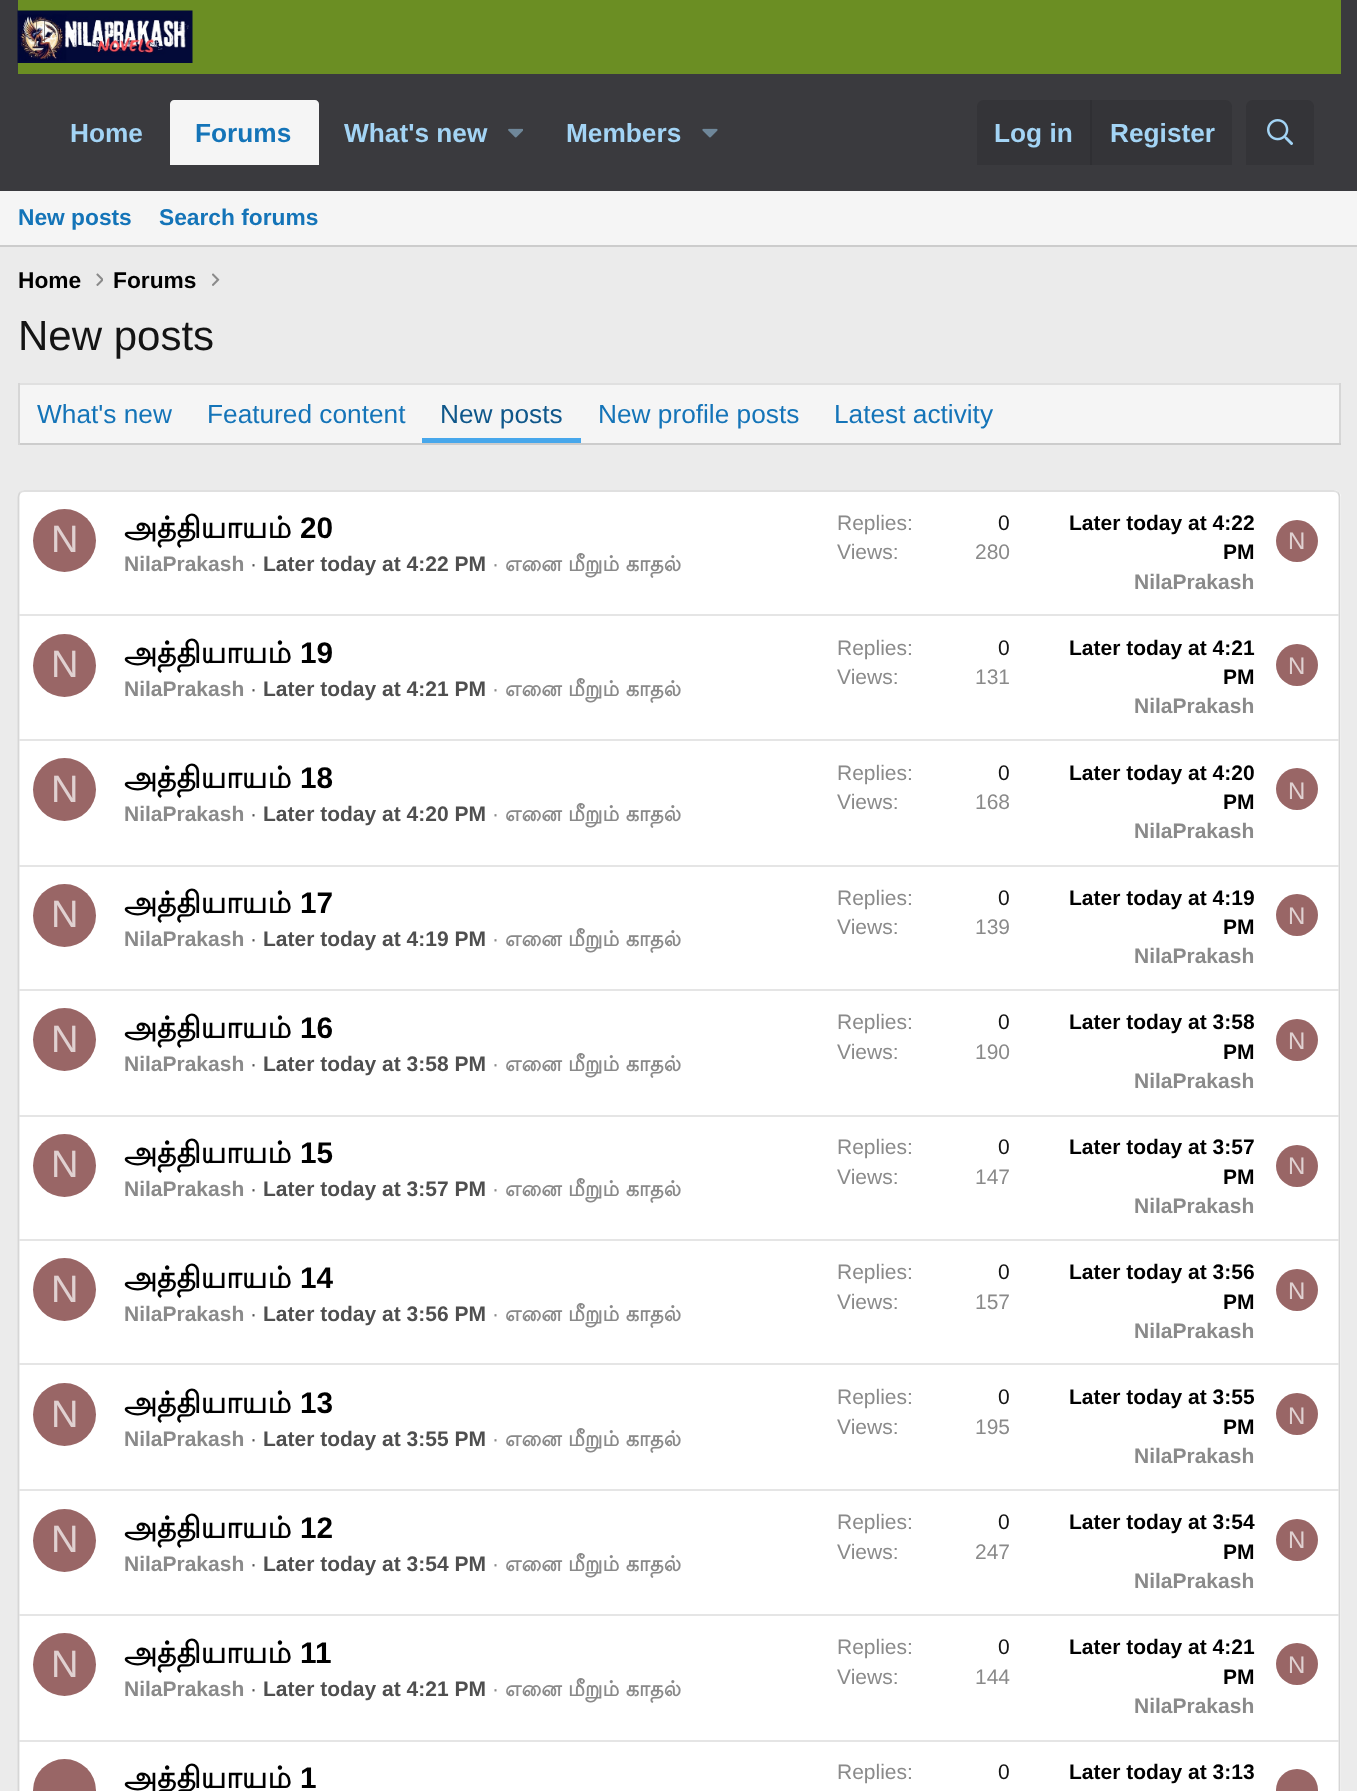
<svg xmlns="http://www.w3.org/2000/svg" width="1357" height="1791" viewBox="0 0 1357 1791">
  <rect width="100%" height="100%" fill="rgb(235,235,235)"/>
  <rect x="0" y="0" width="1357" height="74" fill="rgb(58,58,62)"/>
  <rect x="18" y="0" width="1323" height="74" fill="rgb(107,142,35)"/>
  <image x="17" y="10" width="176" height="53" href="pic1.png"/>
  <rect x="0" y="74" width="1357" height="117" fill="rgb(58,58,62)"/>
  <text x="70" y="142" font-family="Liberation Sans" font-size="26.25" font-weight="bold" fill="rgb(163,212,245)">Home</text>
  <path d="M174 100H315C317 100 319 102 319 104V165H170V104C170 102 172 100 174 100Z" fill="rgb(245,245,245)"/>
  <text x="195" y="142" font-family="Liberation Sans" font-size="26.25" font-weight="bold" fill="rgb(20,116,184)">Forums</text>
  <text x="344" y="142" font-family="Liberation Sans" font-size="26.25" font-weight="bold" fill="rgb(163,212,245)">What's new</text>
  <image x="508" y="128" width="15" height="10" href="pic2.png"/>
  <text x="566" y="142" font-family="Liberation Sans" font-size="26.25" font-weight="bold" fill="rgb(163,212,245)">Members</text>
  <image x="702" y="128" width="16" height="10" href="pic3.png"/>
  <path d="M984 100H1225C1229 100 1232 103 1232 107V165H977V107C977 103 980 100 984 100Z" fill="rgb(52,52,56)"/>
  <text x="994" y="142" font-family="Liberation Sans" font-size="26.25" font-weight="bold" fill="rgb(163,212,245)">Log in</text>
  <rect x="1090" y="100" width="2" height="65" fill="rgb(47,47,51)"/>
  <text x="1110" y="142" font-family="Liberation Sans" font-size="26.25" font-weight="bold" fill="rgb(163,212,245)">Register</text>
  <path d="M1253 100H1307C1311 100 1314 103 1314 107V165H1246V107C1246 103 1249 100 1253 100Z" fill="rgb(52,52,56)"/>
  <image x="1267" y="119" width="26" height="26" href="pic4.png"/>
  <rect x="0" y="191" width="1357" height="54" fill="rgb(245,245,245)"/>
  <rect x="0" y="245" width="1357" height="2" fill="rgb(204,204,204)"/>
  <g font-family="Liberation Sans" font-size="22.75" font-weight="bold" fill="rgb(20,116,184)">
    <text x="18" y="225">New posts</text>
    <text x="159" y="225">Search forums</text>
  </g>
  <text x="18" y="288" font-family="Liberation Sans" font-size="22.75" font-weight="bold" fill="rgb(0,0,0)">Home</text>
  <image x="96" y="273" width="7" height="13" href="pic5.png"/>
  <text x="113" y="288" font-family="Liberation Sans" font-size="22.75" font-weight="bold" fill="rgb(0,0,0)">Forums</text>
  <image x="212" y="273" width="8" height="13" href="pic6.png"/>
  <text x="18" y="350" font-family="Liberation Sans" font-size="42" fill="rgb(20,20,20)">New posts</text>
  <rect x="20" y="385" width="1319" height="58" fill="rgb(245,245,245)"/>
  <rect x="18" y="383" width="1323" height="2" fill="rgb(224,224,224)"/>
  <rect x="1339" y="383" width="2" height="62" fill="rgb(214,214,214)"/>
  <rect x="18" y="443" width="1323" height="2" fill="rgb(204,204,204)"/>
  <rect x="18" y="383" width="2" height="62" fill="rgb(214,214,214)"/>
  <g font-family="Liberation Sans" font-size="26.25" fill="rgb(20,116,184)">
    <text x="37" y="423">What's new</text>
    <text x="207" y="423">Featured content</text>
  </g>
  <rect x="422" y="438" width="159" height="5" fill="rgb(71,167,235)"/>
  <text x="440" y="423" font-family="Liberation Sans" font-size="26.25" fill="rgb(15,87,138)">New posts</text>
  <g font-family="Liberation Sans" font-size="26.25" fill="rgb(20,116,184)">
    <text x="598" y="423">New profile posts</text>
    <text x="834" y="423">Latest activity</text>
  </g>
  <rect x="18" y="490" width="1323" height="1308" rx="7" fill="rgb(255,255,255)"/>
  <path d="M20 492.5C21.5 491.5 23 491 24.5 491H1333.5C1335 491 1336.5 491.5 1338 492.5" fill="none" stroke="rgb(224,224,224)" stroke-width="1.8"/>
  <path d="M1338 492.5C1339 494 1339.5 495.5 1339.5 497V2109C1339.5 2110.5 1339 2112 1338 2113" fill="none" stroke="rgb(214,214,214)" stroke-width="1.8"/>
  <path d="M20 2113C19 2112 18.5 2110.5 18.5 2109V497C18.5 495.5 19 494 20 492.5" fill="none" stroke="rgb(214,214,214)" stroke-width="1.8"/>
  <circle cx="64.5" cy="540.5" r="31.5" fill="rgb(153,102,102)"/>
  <text x="51" y="552" font-family="Liberation Sans" font-size="38" fill="rgb(224,209,209)">N</text>
  <text x="124" y="538" font-family="Lohit Tamil" font-size="29.75" font-weight="bold" fill="rgb(0,0,0)">அத்தியாயம்</text>
  <text x="300" y="538" font-family="Liberation Sans" font-size="29.75" font-weight="bold" fill="rgb(0,0,0)">20</text>
  <text x="124" y="571" font-family="Liberation Sans" font-size="21" font-weight="bold" fill="rgb(138,138,138)">NilaPrakash</text>
  <text x="250" y="571" font-family="Liberation Sans" font-size="21" fill="rgb(79,79,79)">·</text>
  <text x="263" y="571" font-family="Liberation Sans" font-size="21" font-weight="bold" fill="rgb(79,79,79)">Later today at 4:22 PM</text>
  <text x="492" y="571" font-family="Liberation Sans" font-size="21" fill="rgb(138,138,138)">·</text>
  <text x="505" y="571" font-family="Lohit Tamil" font-size="21" font-weight="bold" fill="rgb(138,138,138)">எனை மீறும் காதல்</text>
  <text x="837" y="530" font-family="Liberation Sans" font-size="21" fill="rgb(138,138,138)">Replies:</text>
  <text x="998" y="530" font-family="Liberation Sans" font-size="21" fill="rgb(20,20,20)">0</text>
  <g font-family="Liberation Sans" font-size="21" fill="rgb(138,138,138)">
    <text x="837" y="559">Views:</text>
    <text x="975" y="559">280</text>
  </g>
  <g font-family="Liberation Sans" font-size="21" font-weight="bold" fill="rgb(0,0,0)">
    <text x="1069" y="530">Later today at 4:22</text>
    <text x="1223" y="559">PM</text>
  </g>
  <text x="1134" y="589" font-family="Liberation Sans" font-size="21" font-weight="bold" fill="rgb(138,138,138)">NilaPrakash</text>
  <circle cx="1297" cy="541" r="21" fill="rgb(153,102,102)"/>
  <text x="1288" y="549" font-family="Liberation Sans" font-size="24" fill="rgb(224,209,209)">N</text>
  <rect x="19" y="614" width="1320" height="2" fill="rgb(229,229,229)"/>
  <circle cx="64.5" cy="665.5" r="31.5" fill="rgb(153,102,102)"/>
  <text x="51" y="677" font-family="Liberation Sans" font-size="38" fill="rgb(224,209,209)">N</text>
  <text x="124" y="663" font-family="Lohit Tamil" font-size="29.75" font-weight="bold" fill="rgb(0,0,0)">அத்தியாயம்</text>
  <text x="300" y="663" font-family="Liberation Sans" font-size="29.75" font-weight="bold" fill="rgb(0,0,0)">19</text>
  <text x="124" y="696" font-family="Liberation Sans" font-size="21" font-weight="bold" fill="rgb(138,138,138)">NilaPrakash</text>
  <text x="250" y="696" font-family="Liberation Sans" font-size="21" fill="rgb(79,79,79)">·</text>
  <text x="263" y="696" font-family="Liberation Sans" font-size="21" font-weight="bold" fill="rgb(79,79,79)">Later today at 4:21 PM</text>
  <text x="492" y="696" font-family="Liberation Sans" font-size="21" fill="rgb(138,138,138)">·</text>
  <text x="505" y="696" font-family="Lohit Tamil" font-size="21" font-weight="bold" fill="rgb(138,138,138)">எனை மீறும் காதல்</text>
  <text x="837" y="655" font-family="Liberation Sans" font-size="21" fill="rgb(138,138,138)">Replies:</text>
  <text x="998" y="655" font-family="Liberation Sans" font-size="21" fill="rgb(20,20,20)">0</text>
  <g font-family="Liberation Sans" font-size="21" fill="rgb(138,138,138)">
    <text x="837" y="684">Views:</text>
    <text x="975" y="684">131</text>
  </g>
  <g font-family="Liberation Sans" font-size="21" font-weight="bold" fill="rgb(0,0,0)">
    <text x="1069" y="655">Later today at 4:21</text>
    <text x="1223" y="684">PM</text>
  </g>
  <text x="1134" y="713" font-family="Liberation Sans" font-size="21" font-weight="bold" fill="rgb(138,138,138)">NilaPrakash</text>
  <circle cx="1297" cy="665" r="21" fill="rgb(153,102,102)"/>
  <text x="1288" y="674" font-family="Liberation Sans" font-size="24" fill="rgb(224,209,209)">N</text>
  <rect x="19" y="739" width="1320" height="2" fill="rgb(229,229,229)"/>
  <circle cx="64.5" cy="789.5" r="31.5" fill="rgb(153,102,102)"/>
  <text x="51" y="802" font-family="Liberation Sans" font-size="38" fill="rgb(224,209,209)">N</text>
  <text x="124" y="788" font-family="Lohit Tamil" font-size="29.75" font-weight="bold" fill="rgb(0,0,0)">அத்தியாயம்</text>
  <text x="300" y="788" font-family="Liberation Sans" font-size="29.75" font-weight="bold" fill="rgb(0,0,0)">18</text>
  <text x="124" y="821" font-family="Liberation Sans" font-size="21" font-weight="bold" fill="rgb(138,138,138)">NilaPrakash</text>
  <text x="250" y="821" font-family="Liberation Sans" font-size="21" fill="rgb(79,79,79)">·</text>
  <text x="263" y="821" font-family="Liberation Sans" font-size="21" font-weight="bold" fill="rgb(79,79,79)">Later today at 4:20 PM</text>
  <text x="492" y="821" font-family="Liberation Sans" font-size="21" fill="rgb(138,138,138)">·</text>
  <text x="505" y="821" font-family="Lohit Tamil" font-size="21" font-weight="bold" fill="rgb(138,138,138)">எனை மீறும் காதல்</text>
  <text x="837" y="780" font-family="Liberation Sans" font-size="21" fill="rgb(138,138,138)">Replies:</text>
  <text x="998" y="780" font-family="Liberation Sans" font-size="21" fill="rgb(20,20,20)">0</text>
  <g font-family="Liberation Sans" font-size="21" fill="rgb(138,138,138)">
    <text x="837" y="809">Views:</text>
    <text x="975" y="809">168</text>
  </g>
  <g font-family="Liberation Sans" font-size="21" font-weight="bold" fill="rgb(0,0,0)">
    <text x="1069" y="780">Later today at 4:20</text>
    <text x="1223" y="809">PM</text>
  </g>
  <text x="1134" y="838" font-family="Liberation Sans" font-size="21" font-weight="bold" fill="rgb(138,138,138)">NilaPrakash</text>
  <circle cx="1297" cy="789" r="21" fill="rgb(153,102,102)"/>
  <text x="1288" y="799" font-family="Liberation Sans" font-size="24" fill="rgb(224,209,209)">N</text>
  <rect x="19" y="865" width="1320" height="2" fill="rgb(229,229,229)"/>
  <circle cx="64.5" cy="915.5" r="31.5" fill="rgb(153,102,102)"/>
  <text x="51" y="927" font-family="Liberation Sans" font-size="38" fill="rgb(224,209,209)">N</text>
  <text x="124" y="913" font-family="Lohit Tamil" font-size="29.75" font-weight="bold" fill="rgb(0,0,0)">அத்தியாயம்</text>
  <text x="300" y="913" font-family="Liberation Sans" font-size="29.75" font-weight="bold" fill="rgb(0,0,0)">17</text>
  <text x="124" y="946" font-family="Liberation Sans" font-size="21" font-weight="bold" fill="rgb(138,138,138)">NilaPrakash</text>
  <text x="250" y="946" font-family="Liberation Sans" font-size="21" fill="rgb(79,79,79)">·</text>
  <text x="263" y="946" font-family="Liberation Sans" font-size="21" font-weight="bold" fill="rgb(79,79,79)">Later today at 4:19 PM</text>
  <text x="492" y="946" font-family="Liberation Sans" font-size="21" fill="rgb(138,138,138)">·</text>
  <text x="505" y="946" font-family="Lohit Tamil" font-size="21" font-weight="bold" fill="rgb(138,138,138)">எனை மீறும் காதல்</text>
  <text x="837" y="905" font-family="Liberation Sans" font-size="21" fill="rgb(138,138,138)">Replies:</text>
  <text x="998" y="905" font-family="Liberation Sans" font-size="21" fill="rgb(20,20,20)">0</text>
  <g font-family="Liberation Sans" font-size="21" fill="rgb(138,138,138)">
    <text x="837" y="934">Views:</text>
    <text x="975" y="934">139</text>
  </g>
  <g font-family="Liberation Sans" font-size="21" font-weight="bold" fill="rgb(0,0,0)">
    <text x="1069" y="905">Later today at 4:19</text>
    <text x="1223" y="934">PM</text>
  </g>
  <text x="1134" y="963" font-family="Liberation Sans" font-size="21" font-weight="bold" fill="rgb(138,138,138)">NilaPrakash</text>
  <circle cx="1297" cy="915" r="21" fill="rgb(153,102,102)"/>
  <text x="1288" y="924" font-family="Liberation Sans" font-size="24" fill="rgb(224,209,209)">N</text>
  <rect x="19" y="989" width="1320" height="2" fill="rgb(229,229,229)"/>
  <circle cx="64.5" cy="1039.5" r="31.5" fill="rgb(153,102,102)"/>
  <text x="51" y="1052" font-family="Liberation Sans" font-size="38" fill="rgb(224,209,209)">N</text>
  <text x="124" y="1038" font-family="Lohit Tamil" font-size="29.75" font-weight="bold" fill="rgb(0,0,0)">அத்தியாயம்</text>
  <text x="300" y="1038" font-family="Liberation Sans" font-size="29.75" font-weight="bold" fill="rgb(0,0,0)">16</text>
  <text x="124" y="1071" font-family="Liberation Sans" font-size="21" font-weight="bold" fill="rgb(138,138,138)">NilaPrakash</text>
  <text x="250" y="1071" font-family="Liberation Sans" font-size="21" fill="rgb(79,79,79)">·</text>
  <text x="263" y="1071" font-family="Liberation Sans" font-size="21" font-weight="bold" fill="rgb(79,79,79)">Later today at 3:58 PM</text>
  <text x="492" y="1071" font-family="Liberation Sans" font-size="21" fill="rgb(138,138,138)">·</text>
  <text x="505" y="1071" font-family="Lohit Tamil" font-size="21" font-weight="bold" fill="rgb(138,138,138)">எனை மீறும் காதல்</text>
  <text x="837" y="1029" font-family="Liberation Sans" font-size="21" fill="rgb(138,138,138)">Replies:</text>
  <text x="998" y="1029" font-family="Liberation Sans" font-size="21" fill="rgb(20,20,20)">0</text>
  <g font-family="Liberation Sans" font-size="21" fill="rgb(138,138,138)">
    <text x="837" y="1059">Views:</text>
    <text x="975" y="1059">190</text>
  </g>
  <g font-family="Liberation Sans" font-size="21" font-weight="bold" fill="rgb(0,0,0)">
    <text x="1069" y="1029">Later today at 3:58</text>
    <text x="1223" y="1059">PM</text>
  </g>
  <text x="1134" y="1088" font-family="Liberation Sans" font-size="21" font-weight="bold" fill="rgb(138,138,138)">NilaPrakash</text>
  <circle cx="1297" cy="1040" r="21" fill="rgb(153,102,102)"/>
  <text x="1288" y="1049" font-family="Liberation Sans" font-size="24" fill="rgb(224,209,209)">N</text>
  <rect x="19" y="1115" width="1320" height="2" fill="rgb(229,229,229)"/>
  <circle cx="64.5" cy="1165.5" r="31.5" fill="rgb(153,102,102)"/>
  <text x="51" y="1177" font-family="Liberation Sans" font-size="38" fill="rgb(224,209,209)">N</text>
  <text x="124" y="1163" font-family="Lohit Tamil" font-size="29.75" font-weight="bold" fill="rgb(0,0,0)">அத்தியாயம்</text>
  <text x="300" y="1163" font-family="Liberation Sans" font-size="29.75" font-weight="bold" fill="rgb(0,0,0)">15</text>
  <text x="124" y="1196" font-family="Liberation Sans" font-size="21" font-weight="bold" fill="rgb(138,138,138)">NilaPrakash</text>
  <text x="250" y="1196" font-family="Liberation Sans" font-size="21" fill="rgb(79,79,79)">·</text>
  <text x="263" y="1196" font-family="Liberation Sans" font-size="21" font-weight="bold" fill="rgb(79,79,79)">Later today at 3:57 PM</text>
  <text x="492" y="1196" font-family="Liberation Sans" font-size="21" fill="rgb(138,138,138)">·</text>
  <text x="505" y="1196" font-family="Lohit Tamil" font-size="21" font-weight="bold" fill="rgb(138,138,138)">எனை மீறும் காதல்</text>
  <text x="837" y="1154" font-family="Liberation Sans" font-size="21" fill="rgb(138,138,138)">Replies:</text>
  <text x="998" y="1154" font-family="Liberation Sans" font-size="21" fill="rgb(20,20,20)">0</text>
  <g font-family="Liberation Sans" font-size="21" fill="rgb(138,138,138)">
    <text x="837" y="1184">Views:</text>
    <text x="975" y="1184">147</text>
  </g>
  <g font-family="Liberation Sans" font-size="21" font-weight="bold" fill="rgb(0,0,0)">
    <text x="1069" y="1154">Later today at 3:57</text>
    <text x="1223" y="1184">PM</text>
  </g>
  <text x="1134" y="1213" font-family="Liberation Sans" font-size="21" font-weight="bold" fill="rgb(138,138,138)">NilaPrakash</text>
  <circle cx="1297" cy="1166" r="21" fill="rgb(153,102,102)"/>
  <text x="1288" y="1174" font-family="Liberation Sans" font-size="24" fill="rgb(224,209,209)">N</text>
  <rect x="19" y="1239" width="1320" height="2" fill="rgb(229,229,229)"/>
  <circle cx="64.5" cy="1289.5" r="31.5" fill="rgb(153,102,102)"/>
  <text x="51" y="1302" font-family="Liberation Sans" font-size="38" fill="rgb(224,209,209)">N</text>
  <text x="124" y="1288" font-family="Lohit Tamil" font-size="29.75" font-weight="bold" fill="rgb(0,0,0)">அத்தியாயம்</text>
  <text x="300" y="1288" font-family="Liberation Sans" font-size="29.75" font-weight="bold" fill="rgb(0,0,0)">14</text>
  <text x="124" y="1321" font-family="Liberation Sans" font-size="21" font-weight="bold" fill="rgb(138,138,138)">NilaPrakash</text>
  <text x="250" y="1321" font-family="Liberation Sans" font-size="21" fill="rgb(79,79,79)">·</text>
  <text x="263" y="1321" font-family="Liberation Sans" font-size="21" font-weight="bold" fill="rgb(79,79,79)">Later today at 3:56 PM</text>
  <text x="492" y="1321" font-family="Liberation Sans" font-size="21" fill="rgb(138,138,138)">·</text>
  <text x="505" y="1321" font-family="Lohit Tamil" font-size="21" font-weight="bold" fill="rgb(138,138,138)">எனை மீறும் காதல்</text>
  <text x="837" y="1279" font-family="Liberation Sans" font-size="21" fill="rgb(138,138,138)">Replies:</text>
  <text x="998" y="1279" font-family="Liberation Sans" font-size="21" fill="rgb(20,20,20)">0</text>
  <g font-family="Liberation Sans" font-size="21" fill="rgb(138,138,138)">
    <text x="837" y="1309">Views:</text>
    <text x="975" y="1309">157</text>
  </g>
  <g font-family="Liberation Sans" font-size="21" font-weight="bold" fill="rgb(0,0,0)">
    <text x="1069" y="1279">Later today at 3:56</text>
    <text x="1223" y="1309">PM</text>
  </g>
  <text x="1134" y="1338" font-family="Liberation Sans" font-size="21" font-weight="bold" fill="rgb(138,138,138)">NilaPrakash</text>
  <circle cx="1297" cy="1290" r="21" fill="rgb(153,102,102)"/>
  <text x="1288" y="1299" font-family="Liberation Sans" font-size="24" fill="rgb(224,209,209)">N</text>
  <rect x="19" y="1363" width="1320" height="2" fill="rgb(229,229,229)"/>
  <circle cx="64.5" cy="1414.5" r="31.5" fill="rgb(153,102,102)"/>
  <text x="51" y="1427" font-family="Liberation Sans" font-size="38" fill="rgb(224,209,209)">N</text>
  <text x="124" y="1413" font-family="Lohit Tamil" font-size="29.75" font-weight="bold" fill="rgb(0,0,0)">அத்தியாயம்</text>
  <text x="300" y="1413" font-family="Liberation Sans" font-size="29.75" font-weight="bold" fill="rgb(0,0,0)">13</text>
  <text x="124" y="1446" font-family="Liberation Sans" font-size="21" font-weight="bold" fill="rgb(138,138,138)">NilaPrakash</text>
  <text x="250" y="1446" font-family="Liberation Sans" font-size="21" fill="rgb(79,79,79)">·</text>
  <text x="263" y="1446" font-family="Liberation Sans" font-size="21" font-weight="bold" fill="rgb(79,79,79)">Later today at 3:55 PM</text>
  <text x="492" y="1446" font-family="Liberation Sans" font-size="21" fill="rgb(138,138,138)">·</text>
  <text x="505" y="1446" font-family="Lohit Tamil" font-size="21" font-weight="bold" fill="rgb(138,138,138)">எனை மீறும் காதல்</text>
  <text x="837" y="1404" font-family="Liberation Sans" font-size="21" fill="rgb(138,138,138)">Replies:</text>
  <text x="998" y="1404" font-family="Liberation Sans" font-size="21" fill="rgb(20,20,20)">0</text>
  <g font-family="Liberation Sans" font-size="21" fill="rgb(138,138,138)">
    <text x="837" y="1434">Views:</text>
    <text x="975" y="1434">195</text>
  </g>
  <g font-family="Liberation Sans" font-size="21" font-weight="bold" fill="rgb(0,0,0)">
    <text x="1069" y="1404">Later today at 3:55</text>
    <text x="1223" y="1434">PM</text>
  </g>
  <text x="1134" y="1463" font-family="Liberation Sans" font-size="21" font-weight="bold" fill="rgb(138,138,138)">NilaPrakash</text>
  <circle cx="1297" cy="1414" r="21" fill="rgb(153,102,102)"/>
  <text x="1288" y="1424" font-family="Liberation Sans" font-size="24" fill="rgb(224,209,209)">N</text>
  <rect x="19" y="1489" width="1320" height="2" fill="rgb(229,229,229)"/>
  <circle cx="64.5" cy="1540.5" r="31.5" fill="rgb(153,102,102)"/>
  <text x="51" y="1552" font-family="Liberation Sans" font-size="38" fill="rgb(224,209,209)">N</text>
  <text x="124" y="1538" font-family="Lohit Tamil" font-size="29.75" font-weight="bold" fill="rgb(0,0,0)">அத்தியாயம்</text>
  <text x="300" y="1538" font-family="Liberation Sans" font-size="29.75" font-weight="bold" fill="rgb(0,0,0)">12</text>
  <text x="124" y="1571" font-family="Liberation Sans" font-size="21" font-weight="bold" fill="rgb(138,138,138)">NilaPrakash</text>
  <text x="250" y="1571" font-family="Liberation Sans" font-size="21" fill="rgb(79,79,79)">·</text>
  <text x="263" y="1571" font-family="Liberation Sans" font-size="21" font-weight="bold" fill="rgb(79,79,79)">Later today at 3:54 PM</text>
  <text x="492" y="1571" font-family="Liberation Sans" font-size="21" fill="rgb(138,138,138)">·</text>
  <text x="505" y="1571" font-family="Lohit Tamil" font-size="21" font-weight="bold" fill="rgb(138,138,138)">எனை மீறும் காதல்</text>
  <text x="837" y="1529" font-family="Liberation Sans" font-size="21" fill="rgb(138,138,138)">Replies:</text>
  <text x="998" y="1529" font-family="Liberation Sans" font-size="21" fill="rgb(20,20,20)">0</text>
  <g font-family="Liberation Sans" font-size="21" fill="rgb(138,138,138)">
    <text x="837" y="1559">Views:</text>
    <text x="975" y="1559">247</text>
  </g>
  <g font-family="Liberation Sans" font-size="21" font-weight="bold" fill="rgb(0,0,0)">
    <text x="1069" y="1529">Later today at 3:54</text>
    <text x="1223" y="1559">PM</text>
  </g>
  <text x="1134" y="1588" font-family="Liberation Sans" font-size="21" font-weight="bold" fill="rgb(138,138,138)">NilaPrakash</text>
  <circle cx="1297" cy="1540" r="21" fill="rgb(153,102,102)"/>
  <text x="1288" y="1548" font-family="Liberation Sans" font-size="24" fill="rgb(224,209,209)">N</text>
  <rect x="19" y="1614" width="1320" height="2" fill="rgb(229,229,229)"/>
  <circle cx="64.5" cy="1664.5" r="31.5" fill="rgb(153,102,102)"/>
  <text x="51" y="1677" font-family="Liberation Sans" font-size="38" fill="rgb(224,209,209)">N</text>
  <text x="124" y="1663" font-family="Lohit Tamil" font-size="29.75" font-weight="bold" fill="rgb(0,0,0)">அத்தியாயம்</text>
  <text x="300" y="1663" font-family="Liberation Sans" font-size="29.75" font-weight="bold" fill="rgb(0,0,0)">11</text>
  <text x="124" y="1696" font-family="Liberation Sans" font-size="21" font-weight="bold" fill="rgb(138,138,138)">NilaPrakash</text>
  <text x="250" y="1696" font-family="Liberation Sans" font-size="21" fill="rgb(79,79,79)">·</text>
  <text x="263" y="1696" font-family="Liberation Sans" font-size="21" font-weight="bold" fill="rgb(79,79,79)">Later today at 4:21 PM</text>
  <text x="492" y="1696" font-family="Liberation Sans" font-size="21" fill="rgb(138,138,138)">·</text>
  <text x="505" y="1696" font-family="Lohit Tamil" font-size="21" font-weight="bold" fill="rgb(138,138,138)">எனை மீறும் காதல்</text>
  <text x="837" y="1654" font-family="Liberation Sans" font-size="21" fill="rgb(138,138,138)">Replies:</text>
  <text x="998" y="1654" font-family="Liberation Sans" font-size="21" fill="rgb(20,20,20)">0</text>
  <g font-family="Liberation Sans" font-size="21" fill="rgb(138,138,138)">
    <text x="837" y="1684">Views:</text>
    <text x="975" y="1684">144</text>
  </g>
  <g font-family="Liberation Sans" font-size="21" font-weight="bold" fill="rgb(0,0,0)">
    <text x="1069" y="1654">Later today at 4:21</text>
    <text x="1223" y="1684">PM</text>
  </g>
  <text x="1134" y="1713" font-family="Liberation Sans" font-size="21" font-weight="bold" fill="rgb(138,138,138)">NilaPrakash</text>
  <circle cx="1297" cy="1664" r="21" fill="rgb(153,102,102)"/>
  <text x="1288" y="1673" font-family="Liberation Sans" font-size="24" fill="rgb(224,209,209)">N</text>
  <rect x="19" y="1740" width="1320" height="2" fill="rgb(229,229,229)"/>
  <circle cx="64.5" cy="1790.5" r="31.5" fill="rgb(153,102,102)"/>
  <text x="124" y="1788" font-family="Lohit Tamil" font-size="29.75" font-weight="bold" fill="rgb(0,0,0)">அத்தியாயம்</text>
  <text x="300" y="1788" font-family="Liberation Sans" font-size="29.75" font-weight="bold" fill="rgb(0,0,0)">1</text>
  <text x="837" y="1779" font-family="Liberation Sans" font-size="21" fill="rgb(138,138,138)">Replies:</text>
  <text x="998" y="1779" font-family="Liberation Sans" font-size="21" fill="rgb(20,20,20)">0</text>
  <text x="1069" y="1779" font-family="Liberation Sans" font-size="21" font-weight="bold" fill="rgb(0,0,0)">Later today at 3:13</text>
  <circle cx="1297" cy="1790" r="21" fill="rgb(153,102,102)"/>
</svg>
